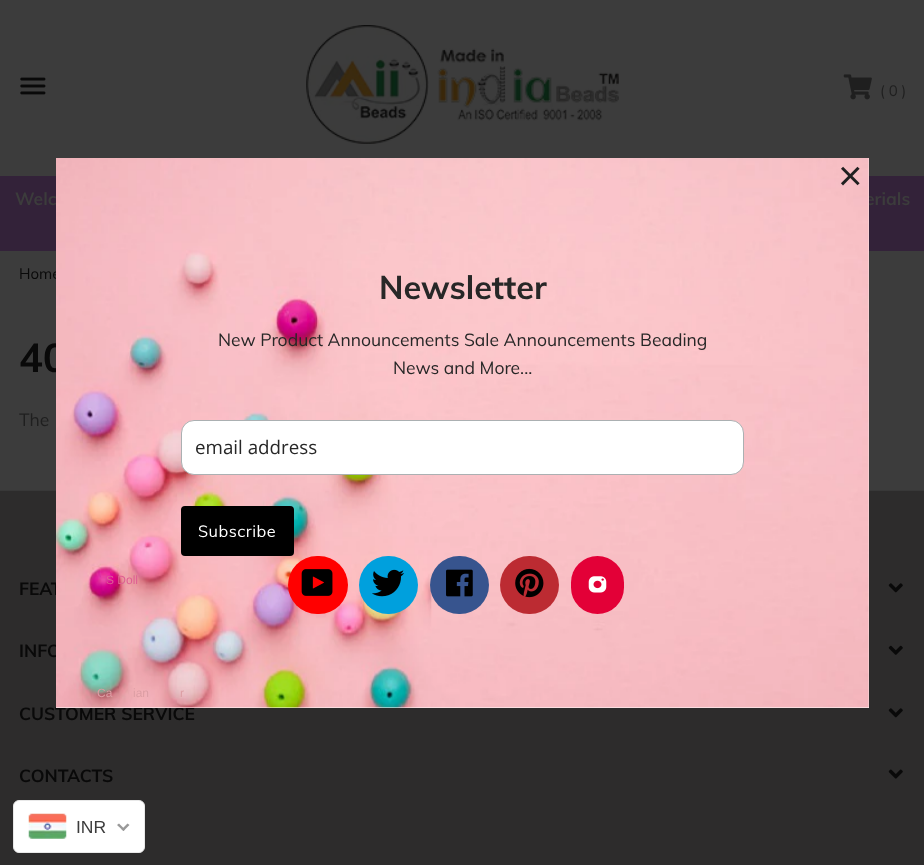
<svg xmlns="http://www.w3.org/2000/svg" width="924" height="865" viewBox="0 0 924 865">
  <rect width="100%" height="100%" fill="rgb(60,60,60)"/>
  <image x="20" y="77" width="26" height="18" href="pic1.png"/>
  <image x="306" y="25" width="313" height="119" href="pic2.png"/>
  <image x="843" y="74" width="29" height="26" href="pic3.png"/>
  <text x="880" y="96" font-family="Muli" font-size="15" fill="rgb(31,31,31)">( 0 )</text>
  <rect x="0" y="176" width="924" height="75" fill="rgb(51,34,57)"/>
  <g font-family="Muli" font-size="17.5" font-weight="bold" fill="rgb(60,60,60)">
    <text x="15" y="205">Welc</text>
    <text x="865" y="205">erials</text>
  </g>
  <text x="19" y="279" font-family="Muli" font-size="15" fill="rgb(9,9,9)">Home</text>
  <text x="19" y="372" font-family="Muli" font-size="40" font-weight="bold" fill="rgb(9,9,9)">40</text>
  <text x="19" y="426" font-family="Muli" font-size="17.5" fill="rgb(31,31,31)">The</text>
  <rect x="0" y="491" width="924" height="374" fill="rgb(45,44,44)"/>
  <rect x="0" y="490" width="924" height="1" fill="rgb(56,56,56)"/>
  <text x="19" y="595" font-family="Muli" font-size="17.5" font-weight="bold" fill="rgb(9,9,9)">FEAT</text>
  <image x="888" y="583" width="15" height="10" href="pic4.png"/>
  <text x="19" y="657" font-family="Muli" font-size="17.5" font-weight="bold" fill="rgb(9,9,9)">INFO</text>
  <image x="888" y="645" width="15" height="10" href="pic5.png"/>
  <text x="19" y="720" font-family="Muli" font-size="17.5" font-weight="bold" fill="rgb(9,9,9)">CUSTOMER SERVICE</text>
  <image x="888" y="708" width="15" height="10" href="pic4.png"/>
  <text x="19" y="782" font-family="Muli" font-size="17.5" font-weight="bold" fill="rgb(9,9,9)">CONTACTS</text>
  <image x="888" y="769" width="15" height="10" href="pic6.png"/>
  <rect x="56" y="158" width="813" height="550" fill="rgb(255,255,255)"/>
  <image x="56" y="158" width="813" height="550" href="pic7.png"/>
  <text x="838" y="190" font-family="Liberation Sans" font-size="42" fill="rgb(31,31,31)">×</text>
  <text x="379" y="299" font-family="Muli" font-size="32.5" font-weight="bold" fill="rgb(39,39,39)">Newsletter</text>
  <g font-family="Muli" font-size="17.5" fill="rgb(39,39,39)">
    <text x="218" y="346">New Product Announcements Sale Announcements Beading</text>
    <text x="393" y="374">News and More...</text>
  </g>
  <rect x="181.5" y="420.5" width="562" height="54" rx="12.5" fill="rgb(255,255,255)" stroke="rgb(171,176,178)"/>
  <text x="195" y="454" font-family="Open Sans" font-size="18.75" fill="rgb(39,39,39)">email address</text>
  <rect x="181" y="506" width="113" height="50" rx="4" fill="rgb(0,0,0)"/>
  <text x="198" y="537" font-family="Muli" font-size="16.25" letter-spacing="0.5" fill="rgb(255,255,255)">Subscribe</text>
  <rect x="288" y="556" width="60" height="58" rx="29" fill="rgb(255,0,0)"/>
  <image x="301" y="569" width="32" height="27" href="pic8.png"/>
  <rect x="359" y="556" width="59" height="58" rx="29" fill="rgb(0,160,221)"/>
  <image x="372" y="569" width="33" height="28" href="pic9.png"/>
  <rect x="430" y="556" width="59" height="58" rx="29" fill="rgb(55,84,142)"/>
  <image x="446" y="569" width="27" height="28" href="pic10.png"/>
  <rect x="500" y="556" width="59" height="58" rx="29" fill="rgb(188,43,50)"/>
  <image x="515" y="568" width="29" height="30" href="pic11.png"/>
  <rect x="571" y="556" width="53" height="58" rx="26.5" fill="rgb(227,0,55)"/>
  <image x="588" y="576" width="19" height="17" href="pic12.png"/>
  <rect x="13.5" y="800.5" width="131" height="52" rx="5.5" fill="rgb(255,255,255)" stroke="rgb(232,232,232)"/>
  <text x="106" y="584" font-family="Liberation Sans" font-size="12" fill="rgb(223,95,147)">S Doll</text>
  <g font-family="Liberation Sans" font-size="12" fill="rgb(220,158,164)">
    <text x="97" y="697">Ca</text>
    <text x="133" y="697">ian</text>
    <text x="180" y="697">r</text>
  </g>
  <image x="28" y="813" width="39" height="26" href="pic13.png"/>
  <text x="76" y="833" font-family="Liberation Sans" font-size="17.5" fill="rgb(60,60,60)">INR</text>
  <path d="M127.5 823.5L129.5 825L123.5 831L121.5 829.5Z" fill="rgb(153,153,153)"/>
  <path d="M119 823.5L125 829.5L123.5 831L117 825Z" fill="rgb(153,153,153)"/>
</svg>
